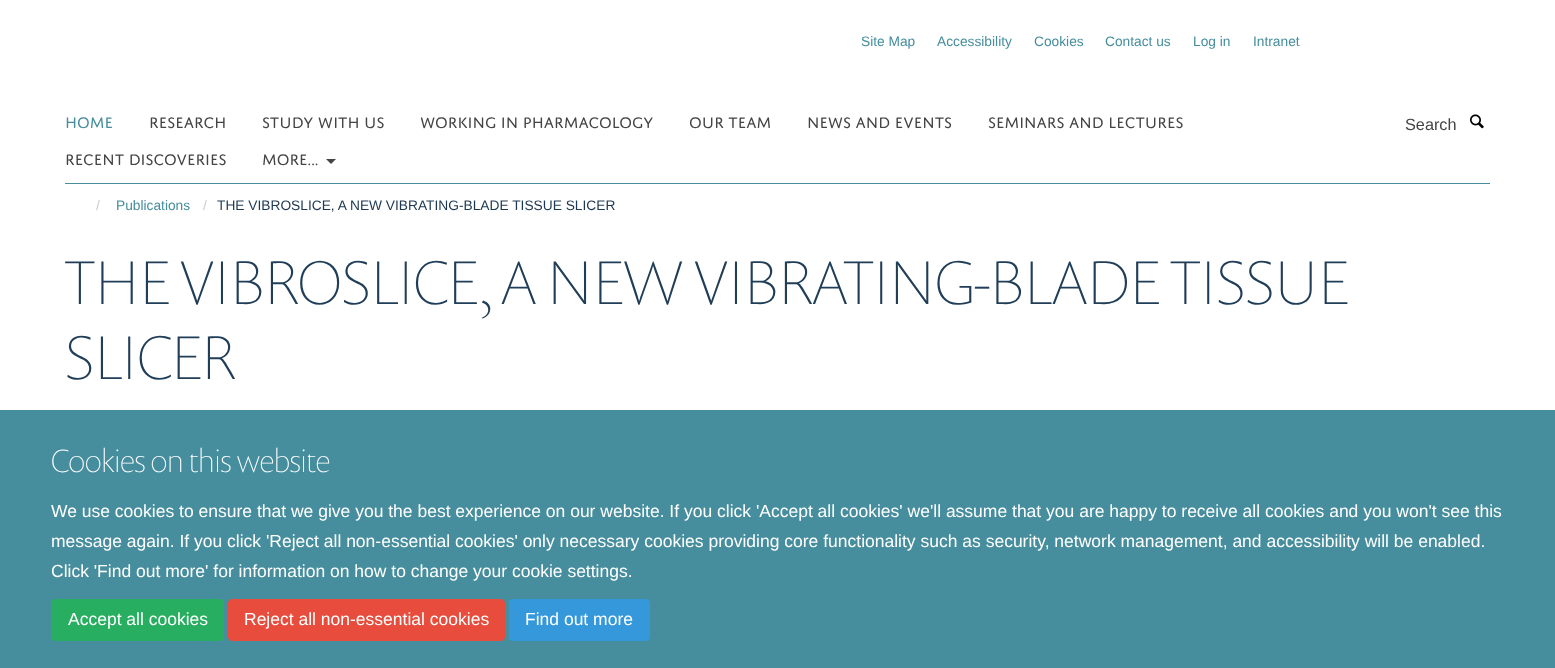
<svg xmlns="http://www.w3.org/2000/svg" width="1555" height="668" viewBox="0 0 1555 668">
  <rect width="100%" height="100%" fill="rgb(255,255,255)"/>
  <g font-family="Liberation Sans" font-size="13.75" fill="rgb(70,142,157)">
    <text x="861" y="46">Site Map</text>
    <text x="937" y="46">Accessibility</text>
    <text x="1034" y="46">Cookies</text>
    <text x="1105" y="46">Contact us</text>
    <text x="1193" y="46">Log in</text>
    <text x="1253" y="46">Intranet</text>
  </g>
  <rect x="65" y="183" width="1425" height="1" fill="rgb(70,142,157)"/>
  <text x="65" y="128" font-family="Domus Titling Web" font-size="16.25" fill="rgb(70,142,157)">HOME</text>
  <g font-family="Domus Titling Web" font-size="16.25" fill="rgb(68,68,68)">
    <text x="149" y="128">RESEARCH</text>
    <text x="262" y="128">STUDY WITH US</text>
    <text x="420" y="128">WORKING IN PHARMACOLOGY</text>
    <text x="689" y="128">OUR TEAM</text>
    <text x="807" y="128">NEWS AND EVENTS</text>
    <text x="988" y="128">SEMINARS AND LECTURES</text>
    <text x="65" y="165">RECENT DISCOVERIES</text>
    <text x="262" y="165">MORE...</text>
  </g>
  <path d="M326 159H336L331 164Z" fill="rgb(68,68,68)"/>
  <text x="1405" y="130" font-family="Liberation Sans" font-size="16.25" fill="rgb(68,68,68)">Search</text>
  <image x="1470" y="114" width="14" height="15" href="pic1.png"/>
  <text x="96" y="210" font-family="Liberation Sans" font-size="13.75" fill="rgb(204,204,204)">/</text>
  <text x="116" y="210" font-family="Liberation Sans" font-size="13.75" fill="rgb(70,142,157)">Publications</text>
  <text x="203" y="210" font-family="Liberation Sans" font-size="13.75" fill="rgb(204,204,204)">/</text>
  <text x="217" y="210" font-family="Liberation Sans" font-size="13.75" fill="rgb(29,56,80)">THE VIBROSLICE, A NEW VIBRATING-BLADE TISSUE SLICER</text>
  <g font-family="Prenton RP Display" font-size="62.5" font-weight="100" fill="rgb(32,62,88)">
    <text>
      <tspan x="65" y="304">THE VIBROSLICE, A NEW VIBRATING-BLADE TISSUE</tspan>
      <tspan x="65" y="379">SLICER</tspan>
    </text>
  </g>
  <rect x="0" y="410" width="1555" height="258" fill="rgb(70,142,157)"/>
  <text x="51" y="472" font-family="Prenton RP Display" font-size="32.5" font-weight="100" fill="rgb(255,255,255)">Cookies on this website</text>
  <g font-family="Liberation Sans" font-size="17.5" fill="rgb(255,255,255)">
    <text>
      <tspan x="51" y="517">We use cookies to ensure that we give you the best experience on our website. If you click 'Accept all cookies' we'll assume that you are happy to receive all cookies and you won't see this</tspan>
      <tspan x="51" y="547">message again. If you click 'Reject all non-essential cookies' only necessary cookies providing core functionality such as security, network management, and accessibility will be enabled.</tspan>
      <tspan x="51" y="577">Click 'Find out more' for information on how to change your cookie settings.</tspan>
    </text>
  </g>
  <rect x="51.5" y="599.5" width="172" height="41" rx="3.5" fill="rgb(39,174,96)" stroke="rgb(39,174,96)"/>
  <text x="68" y="625" font-family="Liberation Sans" font-size="17.5" fill="rgb(255,255,255)">Accept all cookies</text>
  <rect x="228.5" y="599.5" width="276" height="41" rx="3.5" fill="rgb(231,76,60)" stroke="rgb(231,76,60)"/>
  <text x="244" y="625" font-family="Liberation Sans" font-size="17.5" fill="rgb(255,255,255)">Reject all non-essential cookies</text>
  <rect x="509.5" y="599.5" width="140" height="41" rx="3.5" fill="rgb(52,152,219)" stroke="rgb(52,152,219)"/>
  <text x="525" y="625" font-family="Liberation Sans" font-size="17.5" fill="rgb(255,255,255)">Find out more</text>
</svg>
